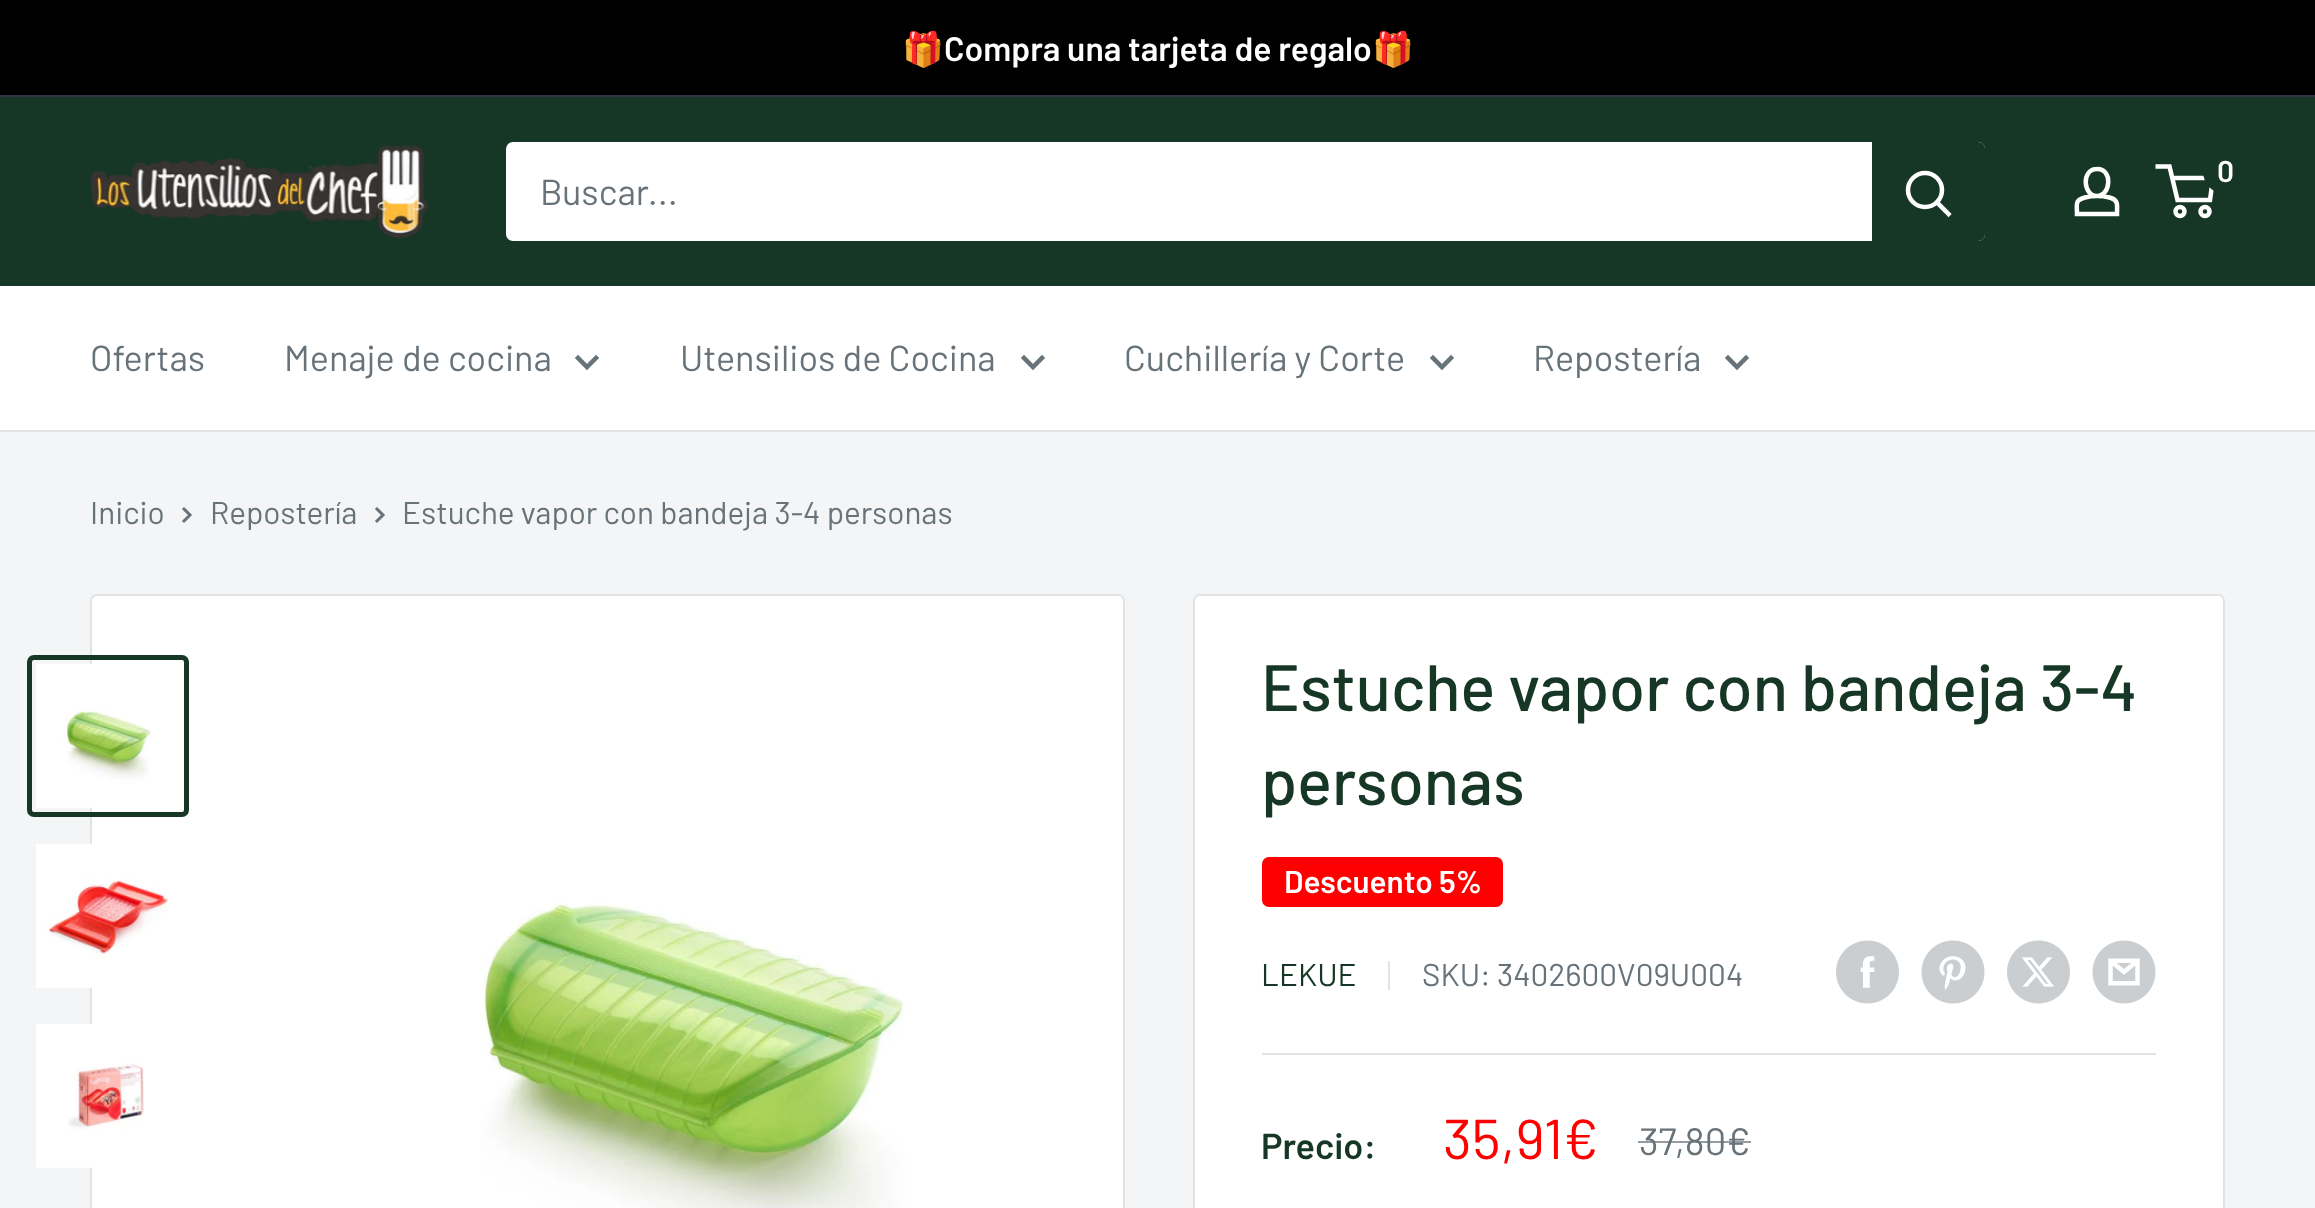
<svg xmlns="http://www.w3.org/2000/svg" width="2315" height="1208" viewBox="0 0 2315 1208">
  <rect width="100%" height="100%" fill="rgb(243,245,246)"/>
  <rect x="0" y="0" width="2315" height="95" fill="rgb(0,0,0)"/>
  <rect x="0" y="95" width="2315" height="2" fill="rgb(49,53,72)"/>
  <text x="902" y="61" font-family="Noto Color Emoji" font-size="33.75" font-weight="bold" fill="rgb(255,255,255)">🎁</text>
  <text x="944" y="61" font-family="Barlow" font-size="33.75" font-weight="600" fill="rgb(255,255,255)">Compra una tarjeta de regalo</text>
  <text x="1372" y="61" font-family="Noto Color Emoji" font-size="33.75" font-weight="bold" fill="rgb(255,255,255)">🎁</text>
  <rect x="0" y="97" width="2315" height="189" fill="rgb(23,55,38)"/>
  <image x="90" y="145" width="338" height="93" href="pic1.png"/>
  <path d="M2097 196C2101 196 2105.5 196.5 2109.5 197.5C2119 200 2117 205.5 2117 214H2077C2077 204.5 2074.5 200 2085 197.5C2089 196.5 2093 196 2097 196ZM2097 196C2083 196 2081 169 2097 169C2113 168.5 2111 196 2097 196Z" fill="none" stroke="rgb(255,255,255)" stroke-width="4.5"/>
  <circle cx="2180" cy="211.5" r="4.5" fill="none" stroke="rgb(255,255,255)" stroke-width="4.5"/>
  <circle cx="2205" cy="211.5" r="4.5" fill="none" stroke="rgb(255,255,255)" stroke-width="4.5"/>
  <path d="M2172 178H2213L2210 200H2177.5L2169.5 166.5H2155.5" fill="none" stroke="rgb(255,255,255)" stroke-width="4.5"/>
  <circle cx="2225.5" cy="171.5" r="22.5" fill="rgb(23,55,38)"/>
  <text x="2217" y="182" font-family="Barlow" font-size="30" font-weight="600" fill="rgb(255,255,255)">0</text>
  <rect x="506" y="142" width="1479" height="99" rx="7" fill="rgb(255,255,255)"/>
  <text x="540" y="205" font-family="Barlow" font-size="36" fill="rgb(103,114,121)">Buscar...</text>
  <path d="M1872 142H1978C1982 142 1985 145 1985 149V234C1985 238 1982 241 1978 241H1872Z" fill="rgb(23,55,38)"/>
  <path d="M1948.5 214L1937 202.5" fill="none" stroke="rgb(255,255,255)" stroke-width="4.5" stroke-linecap="square"/>
  <circle cx="1925" cy="190" r="17" fill="none" stroke="rgb(255,255,255)" stroke-width="4.5"/>
  <rect x="0" y="286" width="2315" height="144" fill="rgb(255,255,255)"/>
  <rect x="0" y="430" width="2315" height="2" fill="rgb(225,227,228)"/>
  <g font-family="Barlow" font-size="36" fill="rgb(103,114,121)">
    <text x="90" y="371">Ofertas</text>
    <text x="284" y="371">Menaje de cocina</text>
  </g>
  <path d="M596 358L587 367L578 358" fill="none" stroke="rgb(103,114,121)" stroke-width="4.5" stroke-linecap="square"/>
  <text x="680" y="371" font-family="Barlow" font-size="36" fill="rgb(103,114,121)">Utensilios de Cocina</text>
  <path d="M1042 358L1033 367L1024 358" fill="none" stroke="rgb(103,114,121)" stroke-width="4.5" stroke-linecap="square"/>
  <text x="1124" y="371" font-family="Barlow" font-size="36" fill="rgb(103,114,121)">Cuchillería y Corte</text>
  <path d="M1451 358L1442 367L1433 358" fill="none" stroke="rgb(103,114,121)" stroke-width="4.5" stroke-linecap="square"/>
  <text x="1533" y="371" font-family="Barlow" font-size="36" fill="rgb(103,114,121)">Repostería</text>
  <path d="M1746 358L1737 367L1728 358" fill="none" stroke="rgb(103,114,121)" stroke-width="4.5" stroke-linecap="square"/>
  <text x="90" y="524" font-family="Barlow" font-size="31.5" fill="rgb(103,114,121)">Inicio</text>
  <path d="M184 509L190 515L184 521" fill="none" stroke="rgb(103,114,121)" stroke-width="3" stroke-linecap="square"/>
  <text x="210" y="524" font-family="Barlow" font-size="31.5" fill="rgb(103,114,121)">Repostería</text>
  <path d="M377 509L383 515L377 521" fill="none" stroke="rgb(103,114,121)" stroke-width="3" stroke-linecap="square"/>
  <text x="402" y="524" font-family="Barlow" font-size="31.5" fill="rgb(103,114,121)">Estuche vapor con bandeja 3-4 personas</text>
  <rect x="91" y="595" width="1033" height="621" rx="6" fill="rgb(255,255,255)" stroke="rgb(225,227,228)" stroke-width="2"/>
  <rect x="29.5" y="657.5" width="157" height="157" rx="4.5" fill="none" stroke="rgb(23,55,38)" stroke-width="5"/>
  <image x="36" y="663" width="115" height="145" href="pic2.png"/>
  <image x="36" y="843" width="133" height="145" href="pic3.png"/>
  <image x="36" y="1023" width="108" height="145" href="pic4.png"/>
  <image x="479" y="901" width="426" height="307" href="pic5.png"/>
  <rect x="1194" y="595" width="1030" height="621" rx="6" fill="rgb(255,255,255)" stroke="rgb(225,227,228)" stroke-width="2"/>
  <g font-family="Barlow" font-size="65.25" font-weight="500" fill="rgb(23,55,38)">
    <text>
      <tspan x="1261" y="711">Estuche vapor con bandeja 3-4</tspan>
      <tspan x="1261" y="805">personas</tspan>
    </text>
  </g>
  <rect x="1262" y="857" width="241" height="50" rx="7" fill="rgb(255,0,0)"/>
  <text x="1284" y="893" font-family="Barlow" font-size="31.5" font-weight="600" fill="rgb(255,255,255)">Descuento 5%</text>
  <text x="1261" y="986" font-family="Barlow" font-size="31.5" fill="rgb(23,55,38)">LEKUE</text>
  <rect x="1388" y="961" width="2" height="29" fill="rgb(225,227,228)"/>
  <text x="1422" y="986" font-family="Barlow" font-size="31.5" fill="rgb(103,114,121)">SKU: 3402600V09U004</text>
  <image x="1836" y="940" width="63" height="64" href="pic6.png"/>
  <image x="1921" y="940" width="64" height="64" href="pic7.png"/>
  <image x="2007" y="940" width="63" height="64" href="pic8.png"/>
  <image x="2092" y="940" width="64" height="64" href="pic9.png"/>
  <rect x="1262" y="1053" width="894" height="2" fill="rgb(225,227,228)"/>
  <text x="1261" y="1159" font-family="Barlow" font-size="36" font-weight="600" fill="rgb(23,55,38)">Precio:</text>
  <text x="1443" y="1159" font-family="Barlow" font-size="56" fill="rgb(255,0,0)">35,91€</text>
  <text x="1639" y="1155" font-family="Barlow" font-size="38" fill="rgb(103,114,121)">37,80€</text>
  <rect x="1638" y="1141" width="113" height="2" fill="rgba(103,114,121,0.7)"/>
</svg>
